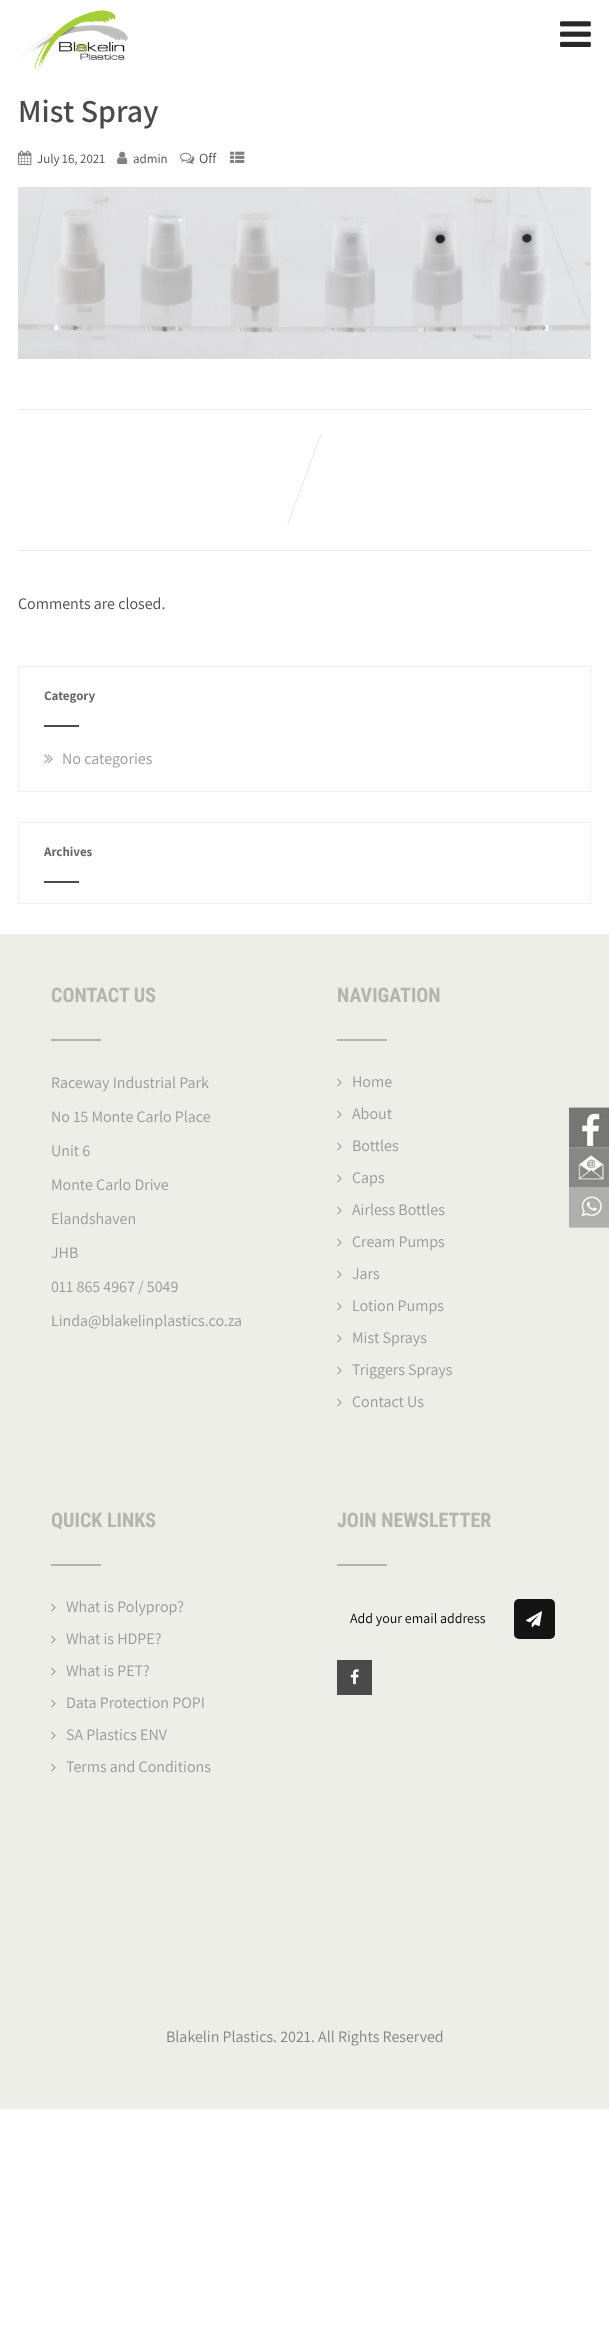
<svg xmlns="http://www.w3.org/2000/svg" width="609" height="2335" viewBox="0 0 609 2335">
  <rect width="100%" height="100%" fill="rgb(255,255,255)"/>
  <image x="19" y="10" width="109" height="63" href="pic1.png"/>
  <image x="560" y="21" width="31" height="26" href="pic2.png"/>
  <text x="18" y="122" font-family="Assistant" font-size="32" font-weight="600" fill="rgb(74,74,74)">Mist Spray</text>
  <image x="18" y="150" width="14" height="16" href="pic3.png"/>
  <text x="37" y="163" font-family="Assistant" font-size="13" fill="rgb(74,74,74)">July 16, 2021</text>
  <image x="117" y="151" width="11" height="13" href="pic4.png"/>
  <text x="133" y="163" font-family="Assistant" font-size="13" fill="rgb(74,74,74)">admin</text>
  <image x="180" y="152" width="15" height="12" href="pic5.png"/>
  <text x="199" y="163" font-family="Assistant" font-size="14" fill="rgb(74,74,74)">Off</text>
  <image x="230" y="151" width="15" height="12" href="pic6.png"/>
  <image x="18" y="187" width="573" height="172" href="pic7.png"/>
  <rect x="18" y="409" width="573" height="1" fill="rgb(230,230,230)"/>
  <rect x="18" y="550" width="573" height="1" fill="rgb(235,235,235)"/>
  <path d="M321 433H322L288 525H287Z" fill="rgb(230,230,230)"/>
  <text x="18" y="609" font-family="Assistant" font-size="16" fill="rgb(74,74,74)">Comments are closed.</text>
  <rect x="18.5" y="666.5" width="572" height="125" fill="none" stroke="rgb(238,239,245)"/>
  <text x="44" y="700" font-family="Assistant" font-size="13" font-weight="bold" fill="rgb(102,102,102)">Category</text>
  <rect x="44" y="725" width="35" height="2" fill="rgb(74,74,74)"/>
  <image x="44" y="754" width="9" height="10" href="pic8.png"/>
  <text x="62" y="764" font-family="Assistant" font-size="16" fill="rgb(153,153,153)">No categories</text>
  <rect x="18.5" y="822.5" width="572" height="81" fill="none" stroke="rgb(238,239,245)"/>
  <text x="44" y="856" font-family="Assistant" font-size="13" font-weight="bold" fill="rgb(102,102,102)">Archives</text>
  <rect x="44" y="881" width="35" height="2" fill="rgb(74,74,74)"/>
  <rect x="0" y="934" width="609" height="1175" fill="rgb(237,238,232)"/>
  <text x="51" y="1002" font-family="Roboto Condensed" font-size="20" font-weight="bold" fill="rgb(180,181,173)">CONTACT US</text>
  <rect x="51" y="1039" width="50" height="2" fill="rgb(180,181,173)"/>
  <g font-family="Assistant" font-size="16" fill="rgb(153,153,153)">
    <text x="51" y="1088">Raceway Industrial Park</text>
    <text x="51" y="1122">No 15 Monte Carlo Place</text>
    <text x="51" y="1156">Unit 6</text>
    <text x="51" y="1190">Monte Carlo Drive</text>
    <text x="51" y="1224">Elandshaven</text>
    <text x="51" y="1258">JHB</text>
    <text x="51" y="1292">011 865 4967 / 5049</text>
    <text x="51" y="1326">Linda@blakelinplastics.co.za</text>
  </g>
  <text x="337" y="1002" font-family="Roboto Condensed" font-size="20" font-weight="bold" fill="rgb(180,181,173)">NAVIGATION</text>
  <rect x="337" y="1039" width="50" height="2" fill="rgb(180,181,173)"/>
  <image x="337" y="1078" width="5" height="9" href="pic9.png"/>
  <text x="352" y="1087" font-family="Assistant" font-size="16" fill="rgb(153,153,153)">Home</text>
  <image x="337" y="1110" width="5" height="9" href="pic9.png"/>
  <text x="352" y="1119" font-family="Assistant" font-size="16" fill="rgb(153,153,153)">About</text>
  <image x="337" y="1142" width="5" height="9" href="pic9.png"/>
  <text x="352" y="1151" font-family="Assistant" font-size="16" fill="rgb(153,153,153)">Bottles</text>
  <image x="337" y="1174" width="5" height="9" href="pic9.png"/>
  <text x="352" y="1183" font-family="Assistant" font-size="16" fill="rgb(153,153,153)">Caps</text>
  <image x="337" y="1206" width="5" height="9" href="pic9.png"/>
  <text x="352" y="1215" font-family="Assistant" font-size="16" fill="rgb(153,153,153)">Airless Bottles</text>
  <image x="337" y="1238" width="5" height="9" href="pic9.png"/>
  <text x="352" y="1247" font-family="Assistant" font-size="16" fill="rgb(153,153,153)">Cream Pumps</text>
  <image x="337" y="1270" width="5" height="9" href="pic9.png"/>
  <text x="352" y="1279" font-family="Assistant" font-size="16" fill="rgb(153,153,153)">Jars</text>
  <image x="337" y="1302" width="5" height="9" href="pic9.png"/>
  <text x="352" y="1311" font-family="Assistant" font-size="16" fill="rgb(153,153,153)">Lotion Pumps</text>
  <image x="337" y="1334" width="5" height="9" href="pic9.png"/>
  <text x="352" y="1343" font-family="Assistant" font-size="16" fill="rgb(153,153,153)">Mist Sprays</text>
  <image x="337" y="1366" width="5" height="9" href="pic9.png"/>
  <text x="352" y="1375" font-family="Assistant" font-size="16" fill="rgb(153,153,153)">Triggers Sprays</text>
  <image x="337" y="1398" width="5" height="9" href="pic9.png"/>
  <text x="352" y="1407" font-family="Assistant" font-size="16" fill="rgb(153,153,153)">Contact Us</text>
  <text x="51" y="1527" font-family="Roboto Condensed" font-size="20" font-weight="bold" fill="rgb(180,181,173)">QUICK LINKS</text>
  <rect x="51" y="1564" width="50" height="2" fill="rgb(180,181,173)"/>
  <image x="51" y="1603" width="5" height="9" href="pic9.png"/>
  <text x="66" y="1612" font-family="Assistant" font-size="16" fill="rgb(153,153,153)">What is Polyprop?</text>
  <image x="51" y="1635" width="5" height="9" href="pic9.png"/>
  <text x="66" y="1644" font-family="Assistant" font-size="16" fill="rgb(153,153,153)">What is HDPE?</text>
  <image x="51" y="1667" width="5" height="9" href="pic9.png"/>
  <text x="66" y="1676" font-family="Assistant" font-size="16" fill="rgb(153,153,153)">What is PET?</text>
  <image x="51" y="1699" width="5" height="9" href="pic9.png"/>
  <text x="66" y="1708" font-family="Assistant" font-size="16" fill="rgb(153,153,153)">Data Protection POPI</text>
  <image x="51" y="1731" width="5" height="9" href="pic9.png"/>
  <text x="66" y="1740" font-family="Assistant" font-size="16" fill="rgb(153,153,153)">SA Plastics ENV</text>
  <image x="51" y="1763" width="5" height="9" href="pic9.png"/>
  <text x="66" y="1772" font-family="Assistant" font-size="16" fill="rgb(153,153,153)">Terms and Conditions</text>
  <text x="337" y="1527" font-family="Roboto Condensed" font-size="20" font-weight="bold" fill="rgb(180,181,173)">JOIN NEWSLETTER</text>
  <rect x="337" y="1564" width="50" height="2" fill="rgb(180,181,173)"/>
  <text x="350" y="1623" font-family="Assistant" font-size="14" fill="rgb(0,0,0)">Add your email address</text>
  <rect x="514" y="1599" width="41" height="40" rx="5" fill="rgb(20,20,20)"/>
  <image x="526" y="1611" width="16" height="17" href="pic10.png"/>
  <rect x="337" y="1660" width="35" height="35" fill="rgb(74,74,74)"/>
  <image x="350" y="1669" width="9" height="16" href="pic11.png"/>
  <text x="166" y="2042" font-family="Assistant" font-size="16" fill="rgb(133,132,132)">Blakelin Plastics. 2021. All Rights Reserved</text>
  <image x="569" y="1107" width="40" height="41" href="pic12.png"/>
  <image x="569" y="1147" width="40" height="41" href="pic13.png"/>
  <image x="569" y="1187" width="40" height="41" href="pic14.png"/>
</svg>
